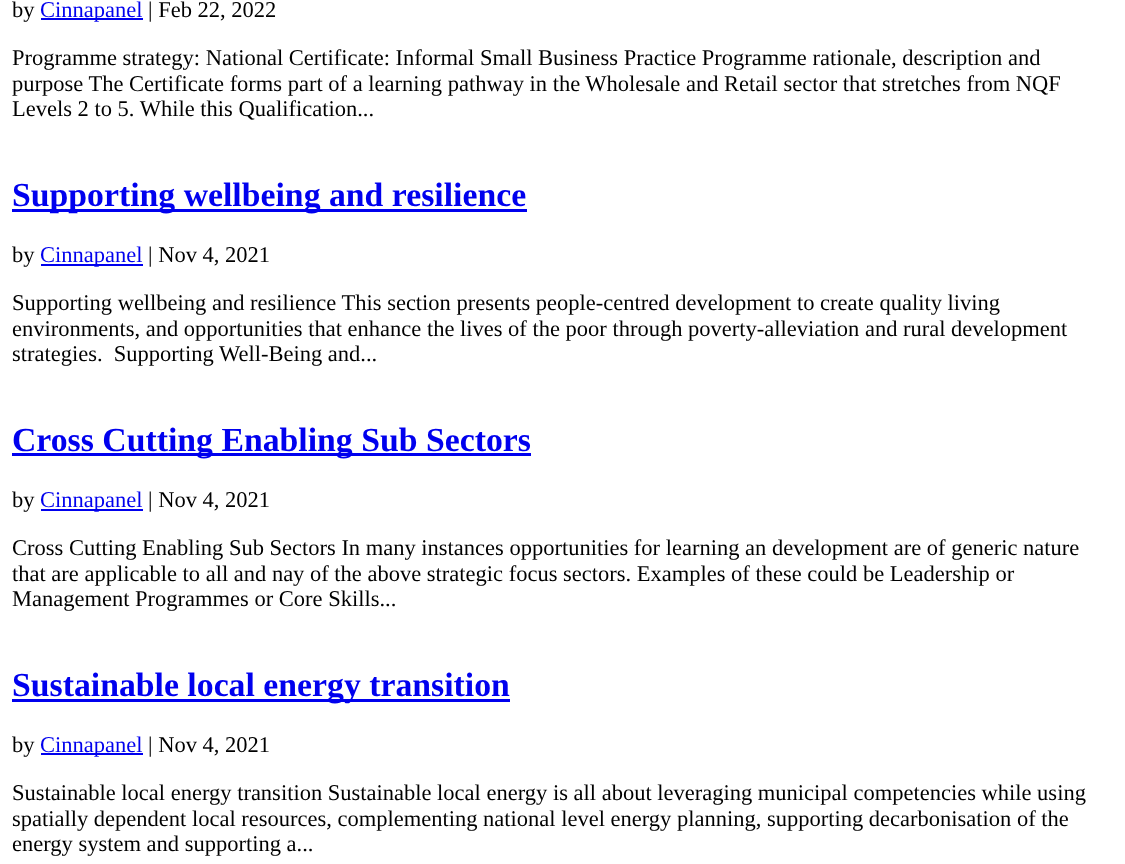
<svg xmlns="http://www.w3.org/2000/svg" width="1125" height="864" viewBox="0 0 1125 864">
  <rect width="100%" height="100%" fill="rgb(255,255,255)"/>
  <text x="12" y="17" font-family="Liberation Serif" font-size="22.5" fill="rgb(0,0,0)">by</text>
  <rect x="41" y="18" width="102" height="2" fill="rgb(0,0,238)"/>
  <text x="40" y="17" font-family="Liberation Serif" font-size="22.5" fill="rgb(0,0,238)">Cinnapanel</text>
  <g font-family="Liberation Serif" font-size="22.5" fill="rgb(0,0,0)">
    <text x="148" y="17">| Feb 22, 2022</text>
    <text>
      <tspan x="12" y="65">Programme strategy: National Certificate: Informal Small Business Practice Programme rationale, description and</tspan>
      <tspan x="12" y="91">purpose The Certificate forms part of a learning pathway in the Wholesale and Retail sector that stretches from NQF</tspan>
      <tspan x="12" y="116">Levels 2 to 5. While this Qualification...</tspan>
    </text>
  </g>
  <rect x="12" y="209" width="515" height="3" fill="rgb(0,0,238)"/>
  <text x="12" y="206" font-family="Liberation Serif" font-size="33.75" font-weight="bold" fill="rgb(0,0,238)">Supporting wellbeing and resilience</text>
  <text x="12" y="262" font-family="Liberation Serif" font-size="22.5" fill="rgb(0,0,0)">by</text>
  <rect x="41" y="264" width="102" height="2" fill="rgb(0,0,238)"/>
  <text x="40" y="262" font-family="Liberation Serif" font-size="22.5" fill="rgb(0,0,238)">Cinnapanel</text>
  <g font-family="Liberation Serif" font-size="22.5" fill="rgb(0,0,0)">
    <text x="148" y="262">| Nov 4, 2021</text>
    <text xml:space="preserve"><tspan x="12" y="310">Supporting wellbeing and resilience This section presents people-centred development to create quality living</tspan><tspan x="12" y="336">environments, and opportunities that enhance the lives of the poor through poverty-alleviation and rural development</tspan><tspan x="12" y="361">strategies.  Supporting Well-Being and...</tspan></text>
  </g>
  <rect x="12" y="453" width="519" height="3" fill="rgb(0,0,238)"/>
  <text x="12" y="451" font-family="Liberation Serif" font-size="33.75" font-weight="bold" fill="rgb(0,0,238)">Cross Cutting Enabling Sub Sectors</text>
  <text x="12" y="507" font-family="Liberation Serif" font-size="22.5" fill="rgb(0,0,0)">by</text>
  <rect x="41" y="509" width="102" height="2" fill="rgb(0,0,238)"/>
  <text x="40" y="507" font-family="Liberation Serif" font-size="22.5" fill="rgb(0,0,238)">Cinnapanel</text>
  <g font-family="Liberation Serif" font-size="22.5" fill="rgb(0,0,0)">
    <text x="148" y="507">| Nov 4, 2021</text>
    <text>
      <tspan x="12" y="555">Cross Cutting Enabling Sub Sectors In many instances opportunities for learning an development are of generic nature</tspan>
      <tspan x="12" y="581">that are applicable to all and nay of the above strategic focus sectors. Examples of these could be Leadership or</tspan>
      <tspan x="12" y="606">Management Programmes or Core Skills...</tspan>
    </text>
  </g>
  <rect x="12" y="699" width="498" height="3" fill="rgb(0,0,238)"/>
  <text x="12" y="696" font-family="Liberation Serif" font-size="33.75" font-weight="bold" fill="rgb(0,0,238)">Sustainable local energy transition</text>
  <text x="12" y="752" font-family="Liberation Serif" font-size="22.5" fill="rgb(0,0,0)">by</text>
  <rect x="41" y="753" width="102" height="2" fill="rgb(0,0,238)"/>
  <text x="40" y="752" font-family="Liberation Serif" font-size="22.5" fill="rgb(0,0,238)">Cinnapanel</text>
  <g font-family="Liberation Serif" font-size="22.5" fill="rgb(0,0,0)">
    <text x="148" y="752">| Nov 4, 2021</text>
    <text>
      <tspan x="12" y="800">Sustainable local energy transition Sustainable local energy is all about leveraging municipal competencies while using</tspan>
      <tspan x="12" y="826">spatially dependent local resources, complementing national level energy planning, supporting decarbonisation of the</tspan>
      <tspan x="12" y="851">energy system and supporting a...</tspan>
    </text>
  </g>
</svg>
